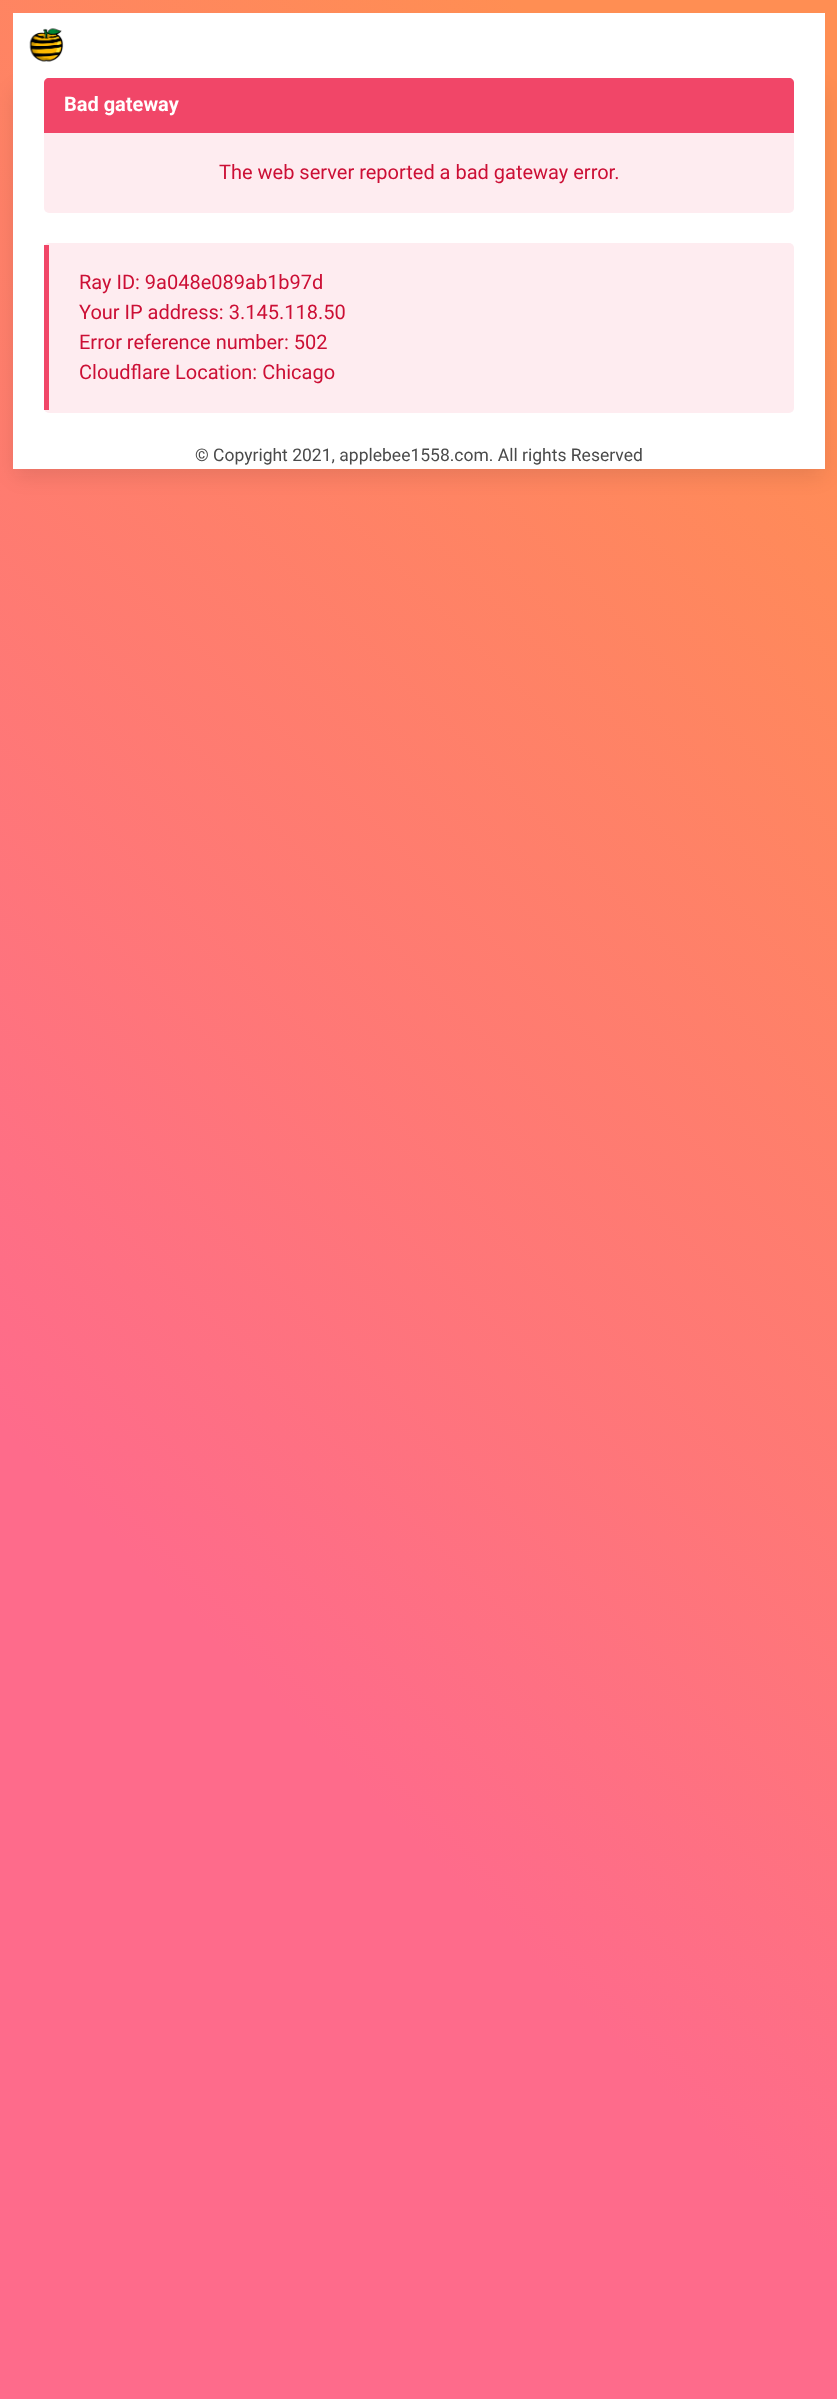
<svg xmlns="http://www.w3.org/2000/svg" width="837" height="2399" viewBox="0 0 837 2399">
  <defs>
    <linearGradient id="g1" gradientUnits="userSpaceOnUse" x1="-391" y1="2009" x2="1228" y2="391"><stop offset="0.3" stop-color="rgb(254,107,139)"/><stop offset="0.9" stop-color="rgb(255,142,83)"/></linearGradient>
  </defs>
  <rect width="100%" height="100%" fill="rgb(255,255,255)"/>
  <rect x="0" y="0" width="837" height="2399" fill="url(#g1)"/>
  <rect x="15" y="90" width="808" height="386" fill="rgba(10,10,10,0.1)" filter="blur(10px)"/>
  <rect x="13" y="13" width="812" height="456" fill="rgb(255,255,255)"/>
  <image x="29" y="28" width="35" height="34" href="pic1.png"/>
  <rect x="44" y="78" width="750" height="135" rx="5" fill="rgb(254,236,240)"/>
  <path d="M49 78H789C792 78 794 80 794 83V133H44V83C44 80 46 78 49 78Z" fill="rgb(241,70,104)"/>
  <text x="64" y="111" font-family="Roboto" font-size="20" font-weight="bold" fill="rgb(255,255,255)">Bad gateway</text>
  <text x="219" y="179" font-family="Roboto" font-size="20" fill="rgb(204,15,53)">The web server reported a bad gateway error.</text>
  <rect x="44" y="243" width="750" height="170" rx="5" fill="rgb(254,236,240)"/>
  <rect x="44" y="245" width="5" height="165" fill="rgb(241,70,104)"/>
  <g font-family="Roboto" font-size="20" fill="rgb(204,15,53)">
    <text>
      <tspan x="79" y="289">Ray ID: 9a048e089ab1b97d</tspan>
      <tspan x="79" y="319">Your IP address: 3.145.118.50</tspan>
      <tspan x="79" y="349">Error reference number: 502</tspan>
      <tspan x="79" y="379">Cloudflare Location: Chicago</tspan>
    </text>
  </g>
  <text x="195" y="461" font-family="Roboto" font-size="17.5" fill="rgb(74,74,74)">© Copyright 2021, applebee1558.com. All rights Reserved</text>
</svg>
